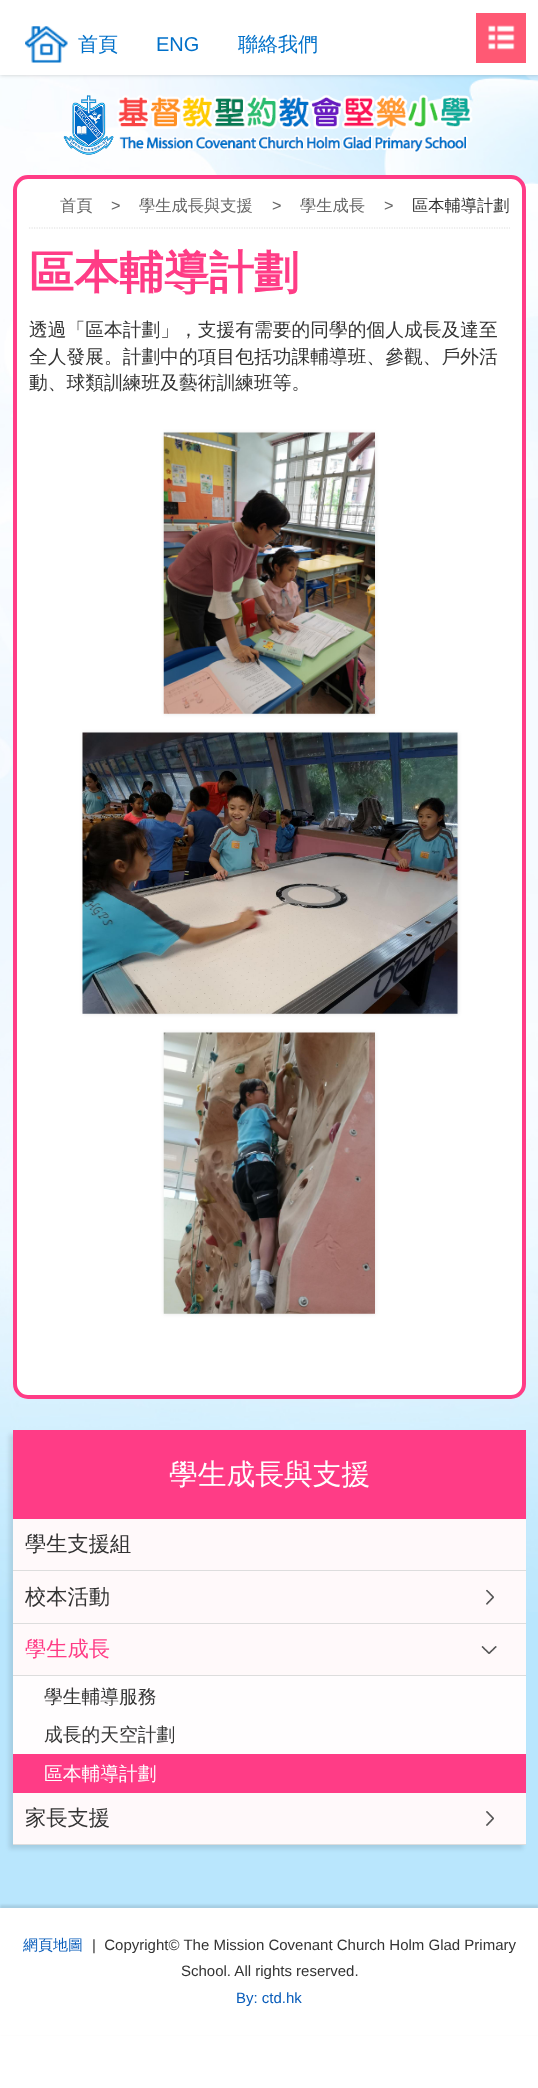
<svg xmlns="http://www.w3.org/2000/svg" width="538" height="2088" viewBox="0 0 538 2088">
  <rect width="100%" height="100%" fill="rgb(255,255,255)"/>
  <rect x="0" y="1612" width="538" height="296" fill="rgb(185,230,253)"/>
  <image x="0" y="75" width="538" height="1537" href="pic1.png"/>
  <rect x="0" y="0" width="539" height="75" fill="rgba(0,0,0,0.2)" filter="blur(2px)"/>
  <rect x="0" y="0" width="538" height="75" fill="rgb(255,255,255)"/>
  <image x="25" y="26" width="43" height="37" href="pic2.png"/>
  <text x="78" y="51" font-family="WenQuanYi Zen Hei" font-size="20" font-weight="500" fill="rgb(0,112,201)">首頁</text>
  <text x="156" y="51" font-family="Liberation Sans" font-size="20" fill="rgb(0,112,201)">ENG</text>
  <text x="238" y="51" font-family="WenQuanYi Zen Hei" font-size="20" font-weight="500" fill="rgb(0,112,201)">聯絡我們</text>
  <rect x="476" y="13" width="50" height="50" fill="rgb(255,89,116)"/>
  <image x="488" y="25" width="27" height="25" href="pic3.png"/>
  <image x="63" y="95" width="51" height="60" href="pic4.png"/>
  <image x="116" y="94" width="357" height="59" href="pic5.png"/>
  <rect x="15" y="177" width="509" height="1220" rx="13" fill="rgb(255,255,255)" stroke="rgb(255,60,134)" stroke-width="4"/>
  <path d="M29 228H510" fill="none" stroke="rgb(221,221,221)" stroke-width="1.2" stroke-dasharray="1.25 1.25"/>
  <text x="60" y="211" font-family="WenQuanYi Zen Hei" font-size="16.25" font-weight="500" fill="rgb(102,102,102)">首頁</text>
  <text x="111" y="211" font-family="Liberation Sans" font-size="16.25" fill="rgb(102,102,102)">&gt;</text>
  <text x="139" y="211" font-family="WenQuanYi Zen Hei" font-size="16.25" font-weight="500" fill="rgb(102,102,102)">學生成長與支援</text>
  <text x="272" y="211" font-family="Liberation Sans" font-size="16.25" fill="rgb(102,102,102)">&gt;</text>
  <text x="300" y="211" font-family="WenQuanYi Zen Hei" font-size="16.25" font-weight="500" fill="rgb(102,102,102)">學生成長</text>
  <text x="384" y="211" font-family="Liberation Sans" font-size="16.25" fill="rgb(102,102,102)">&gt;</text>
  <text x="412" y="211" font-family="WenQuanYi Zen Hei" font-size="16.25" font-weight="500" fill="rgb(51,51,51)">區本輔導計劃</text>
  <text x="29" y="288" font-family="WenQuanYi Zen Hei" font-size="45" font-weight="bold" fill="rgb(255,60,134)">區本輔導計劃</text>
  <g font-family="WenQuanYi Zen Hei" font-size="18.75" font-weight="500" fill="rgb(51,51,51)">
    <text>
      <tspan x="29" y="336">透過「區本計劃」，支援有需要的同學的個人成長及達至</tspan>
      <tspan x="29" y="363">全人發展。計劃中的項目包括功課輔導班、參觀、戶外活</tspan>
      <tspan x="29" y="389">動、球類訓練班及藝術訓練班等。</tspan>
    </text>
  </g>
  <rect x="164" y="433" width="211" height="281" fill="rgba(0,0,0,0.1)" filter="blur(2px)"/>
  <image x="163" y="432" width="212" height="282" href="pic6.png"/>
  <rect x="83" y="733" width="375" height="281" fill="rgba(0,0,0,0.1)" filter="blur(2px)"/>
  <image x="82" y="732" width="376" height="282" href="pic7.png"/>
  <rect x="164" y="1033" width="211" height="281" fill="rgba(0,0,0,0.1)" filter="blur(2px)"/>
  <image x="163" y="1032" width="212" height="282" href="pic8.png"/>
  <rect x="9" y="1434" width="514" height="415" fill="rgba(0,0,0,0.1)" filter="blur(2px)"/>
  <rect x="13" y="1430" width="513" height="89" fill="rgb(255,60,134)"/>
  <text x="169" y="1484" font-family="WenQuanYi Zen Hei" font-size="28.75" font-weight="500" fill="rgb(255,255,255)">學生成長與支援</text>
  <rect x="13" y="1519" width="513" height="325" fill="rgb(255,249,250)"/>
  <rect x="13" y="1570" width="513" height="1" fill="rgb(221,221,221)"/>
  <text x="25" y="1551" font-family="WenQuanYi Zen Hei" font-size="21.25" font-weight="500" fill="rgb(51,51,51)">學生支援組</text>
  <rect x="13" y="1623" width="513" height="1" fill="rgb(221,221,221)"/>
  <image x="486" y="1589" width="8" height="16" href="pic9.png"/>
  <text x="25" y="1604" font-family="WenQuanYi Zen Hei" font-size="21.25" font-weight="500" fill="rgb(51,51,51)">校本活動</text>
  <rect x="13" y="1675" width="513" height="1" fill="rgb(221,221,221)"/>
  <image x="481" y="1646" width="16" height="8" href="pic10.png"/>
  <text x="25" y="1656" font-family="WenQuanYi Zen Hei" font-size="21.25" font-weight="500" fill="rgb(255,60,134)">學生成長</text>
  <rect x="13" y="1676" width="513" height="78" fill="rgb(255,253,254)"/>
  <g font-family="WenQuanYi Zen Hei" font-size="18.75" font-weight="500" fill="rgb(51,51,51)">
    <text x="44" y="1703">學生輔導服務</text>
    <text x="44" y="1741">成長的天空計劃</text>
  </g>
  <rect x="13" y="1754" width="513" height="39" fill="rgb(255,60,134)"/>
  <text x="44" y="1780" font-family="WenQuanYi Zen Hei" font-size="18.75" font-weight="500" fill="rgb(255,255,255)">區本輔導計劃</text>
  <rect x="13" y="1844" width="513" height="1" fill="rgb(221,221,221)"/>
  <image x="486" y="1811" width="8" height="15" href="pic11.png"/>
  <text x="25" y="1825" font-family="WenQuanYi Zen Hei" font-size="21.25" font-weight="500" fill="rgb(51,51,51)">家長支援</text>
  <rect x="0" y="1905" width="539" height="129" fill="rgba(0,0,0,0.1)" filter="blur(1px)"/>
  <rect x="0" y="1908" width="538" height="127" fill="rgb(255,255,255)"/>
  <text x="23" y="1950" font-family="WenQuanYi Zen Hei" font-size="15" font-weight="500" fill="rgb(8,92,186)">網頁地圖</text>
  <g font-family="Liberation Sans" font-size="15" fill="rgb(51,51,51)">
    <text x="92" y="1950" xml:space="preserve">|  Copyright© The Mission Covenant Church Holm Glad Primary</text>
    <text x="181" y="1976">School. All rights reserved.</text>
  </g>
  <text x="236" y="2003" font-family="Liberation Sans" font-size="15" fill="rgb(8,92,186)">By: ctd.hk</text>
</svg>
